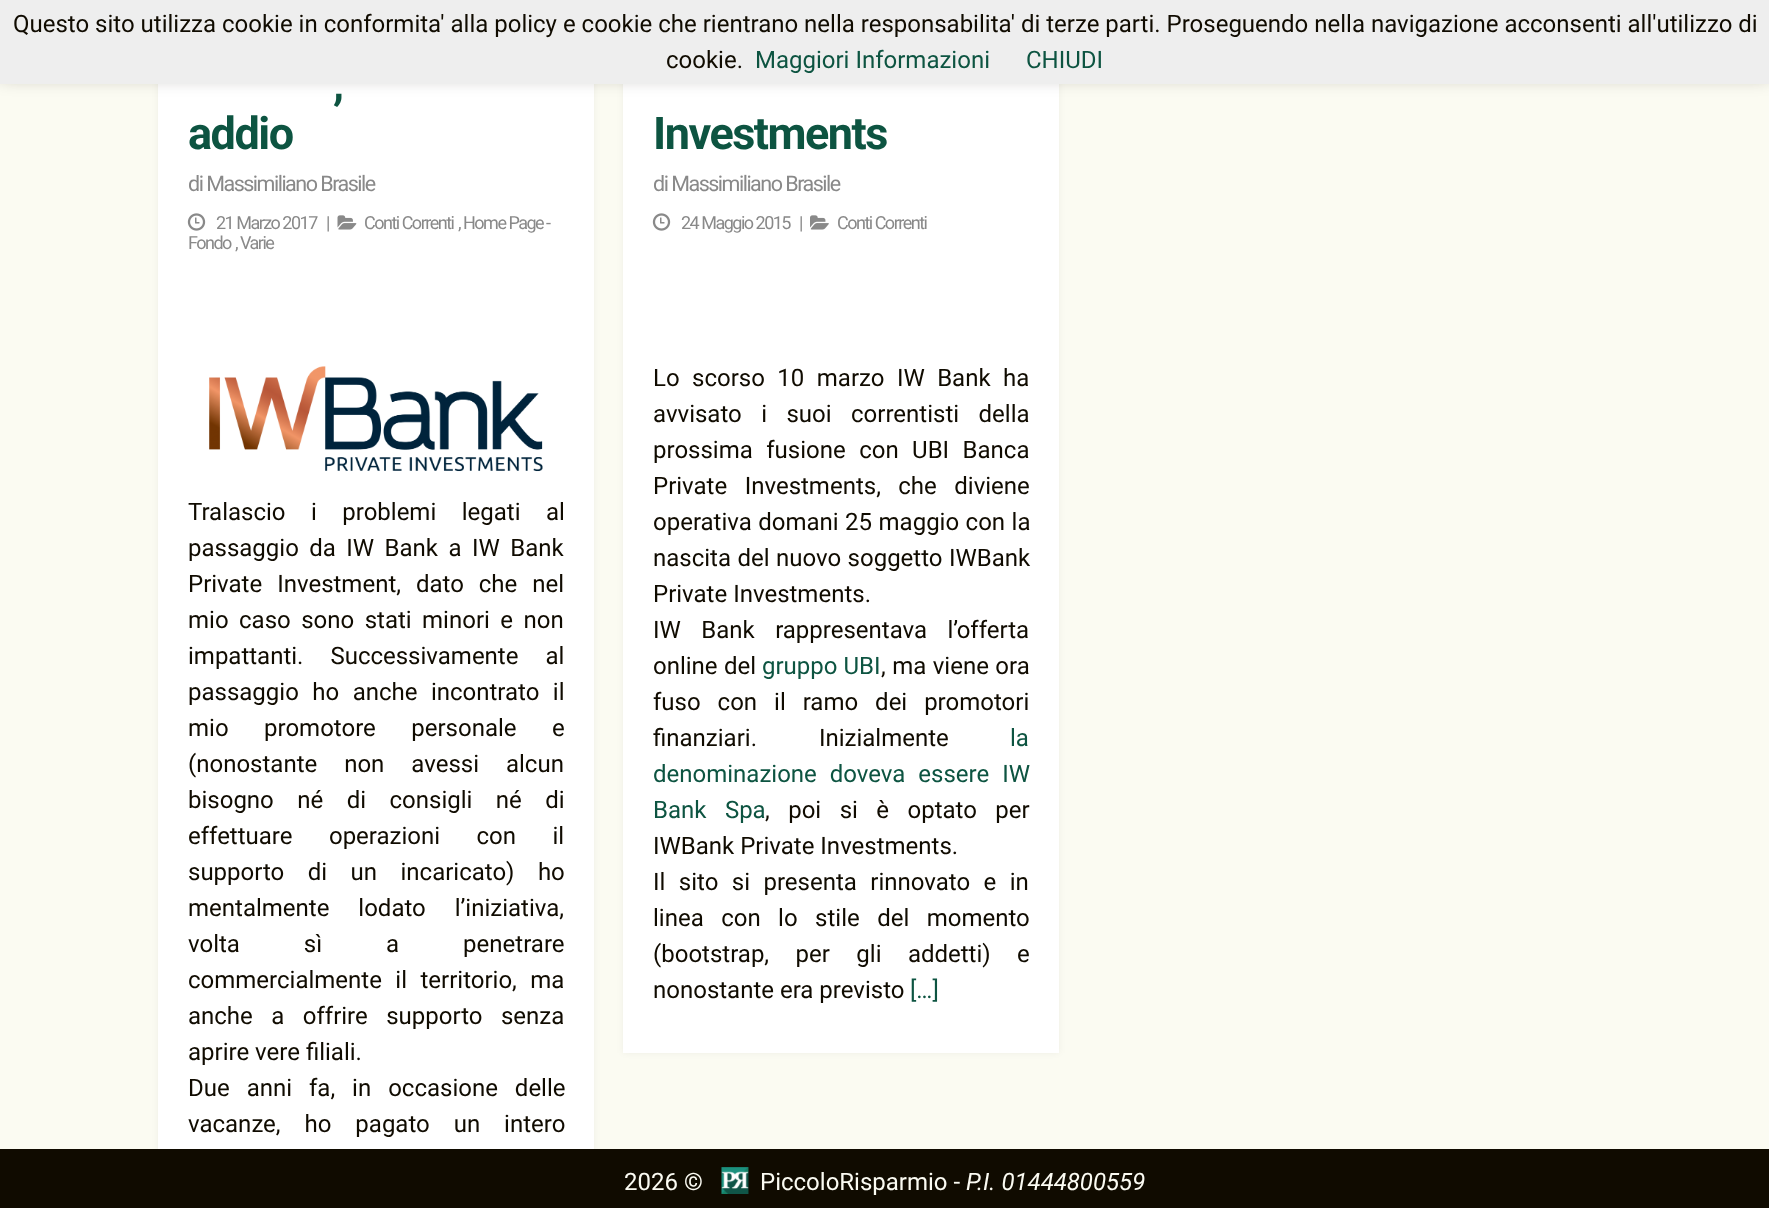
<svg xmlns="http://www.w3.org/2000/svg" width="1769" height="1208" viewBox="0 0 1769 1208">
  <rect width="100%" height="100%" fill="rgb(251,251,242)"/>
  <rect x="158" y="-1" width="436" height="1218" fill="rgba(16,11,0,0.05)" filter="blur(3px)"/>
  <rect x="158" y="84" width="436" height="1065" fill="rgb(255,255,255)"/>
  <rect x="623" y="-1" width="436" height="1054" fill="rgba(16,11,0,0.05)" filter="blur(3px)"/>
  <rect x="623" y="84" width="436" height="969" fill="rgb(255,255,255)"/>
  <rect x="0" y="2" width="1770" height="75" fill="rgba(16,11,0,0.3)" filter="blur(9px)"/>
  <rect x="0" y="0" width="1769" height="84" fill="rgb(238,238,238)"/>
  <g font-family="Roboto" font-size="24" fill="rgb(16,11,0)">
    <text x="13" y="32">Questo sito utilizza cookie in conformita' alla policy e cookie che rientrano nella responsabilita' di terze parti. Proseguendo nella navigazione acconsenti all'utilizzo di</text>
    <text x="666" y="68">cookie.</text>
  </g>
  <g font-family="Roboto" font-size="24" fill="rgb(13,84,65)">
    <text x="755" y="68">Maggiori Informazioni</text>
    <text x="1026" y="68">CHIUDI</text>
  </g>
  <g font-family="Roboto" font-size="45" font-weight="bold" letter-spacing="-1.5" fill="rgb(13,84,65)">
    <text x="333" y="99">,</text>
    <text x="188" y="149">addio</text>
  </g>
  <text x="188" y="191" font-family="Roboto" font-size="21.5" letter-spacing="-1.5" fill="rgb(137,137,137)">di Massimiliano Brasile</text>
  <image x="187" y="213" width="19" height="18" href="pic1.png"/>
  <g font-family="Roboto" font-size="18" letter-spacing="-1.5" fill="rgb(137,137,137)">
    <text x="216" y="229">21 Marzo 2017</text>
    <text x="326" y="229">|</text>
  </g>
  <image x="337" y="215" width="20" height="15" href="pic2.png"/>
  <g font-family="Roboto" font-size="18" letter-spacing="-1.5" fill="rgb(137,137,137)">
    <text x="364" y="229">Conti Correnti</text>
    <text x="458" y="229">, Home Page -</text>
    <text x="188" y="249">Fondo</text>
    <text x="235" y="249">, Varie</text>
  </g>
  <image x="209" y="366" width="334" height="106" href="pic3.png"/>
  <g font-family="Roboto" font-size="24" fill="rgb(16,11,0)">
    <text>
      <tspan x="188" y="520" word-spacing="19.5">Tralascio i problemi legati al</tspan>
      <tspan x="188" y="556" word-spacing="4.5">passaggio da IW Bank a IW Bank</tspan>
      <tspan x="188" y="592" word-spacing="9">Private Investment, dato che nel</tspan>
      <tspan x="188" y="628" word-spacing="4.5">mio caso sono stati minori e non</tspan>
      <tspan x="188" y="664" word-spacing="21">impattanti. Successivamente al</tspan>
      <tspan x="188" y="700" word-spacing="7.5">passaggio ho anche incontrato il</tspan>
      <tspan x="188" y="736" word-spacing="29.5">mio promotore personale e</tspan>
      <tspan x="188" y="772" word-spacing="21">(nonostante non avessi alcun</tspan>
      <tspan x="188" y="808" word-spacing="17.5">bisogno né di consigli né di</tspan>
      <tspan x="188" y="844" word-spacing="30.5">effettuare operazioni con il</tspan>
      <tspan x="188" y="880" word-spacing="17.5">supporto di un incaricato) ho</tspan>
      <tspan x="188" y="916" word-spacing="23">mentalmente lodato l’iniziativa,</tspan>
      <tspan x="188" y="952" word-spacing="58">volta sì a penetrare</tspan>
      <tspan x="188" y="988" word-spacing="7.5">commercialmente il territorio, ma</tspan>
      <tspan x="188" y="1024" word-spacing="12.5">anche a offrire supporto senza</tspan>
      <tspan x="188" y="1060">aprire vere filiali.</tspan>
      <tspan x="188" y="1096" word-spacing="11">Due anni fa, in occasione delle</tspan>
      <tspan x="188" y="1132" word-spacing="18">vacanze, ho pagato un intero</tspan>
    </text>
  </g>
  <text x="653" y="149" font-family="Roboto" font-size="45" font-weight="bold" letter-spacing="-1.5" fill="rgb(13,84,65)">Investments</text>
  <text x="653" y="191" font-family="Roboto" font-size="21.5" letter-spacing="-1.5" fill="rgb(137,137,137)">di Massimiliano Brasile</text>
  <image x="652" y="213" width="19" height="18" href="pic1.png"/>
  <g font-family="Roboto" font-size="18" letter-spacing="-1.5" fill="rgb(137,137,137)">
    <text x="681" y="229">24 Maggio 2015</text>
    <text x="799" y="229">|</text>
  </g>
  <image x="810" y="215" width="19" height="15" href="pic4.png"/>
  <text x="837" y="229" font-family="Roboto" font-size="18" letter-spacing="-1.5" fill="rgb(137,137,137)">Conti Correnti</text>
  <g font-family="Roboto" font-size="24" fill="rgb(16,11,0)">
    <text>
      <tspan x="653" y="386" word-spacing="6.5">Lo scorso 10 marzo IW Bank ha</tspan>
      <tspan x="653" y="422" word-spacing="13.5">avvisato i suoi correntisti della</tspan>
      <tspan x="653" y="458" word-spacing="7.5">prossima fusione con UBI Banca</tspan>
      <tspan x="653" y="494" word-spacing="11.5">Private Investments, che diviene</tspan>
      <tspan x="653" y="530" word-spacing="0.5">operativa domani 25 maggio con la</tspan>
      <tspan x="653" y="566" word-spacing="0.5">nascita del nuovo soggetto IWBank</tspan>
      <tspan x="653" y="602">Private Investments.</tspan>
      <tspan x="653" y="638" word-spacing="14.5">IW Bank rappresentava l’offerta</tspan>
      <tspan x="653" y="674" word-spacing="0.5">online del</tspan>
    </text>
  </g>
  <text x="762" y="674" font-family="Roboto" font-size="24" fill="rgb(13,84,65)">gruppo UBI</text>
  <g font-family="Roboto" font-size="24" fill="rgb(16,11,0)">
    <text x="881" y="674" word-spacing="0.5">, ma viene ora</text>
    <text>
      <tspan x="653" y="710" word-spacing="11">fuso con il ramo dei promotori</tspan>
      <tspan x="653" y="746" word-spacing="56">finanziari. Inizialmente</tspan>
    </text>
  </g>
  <g font-family="Roboto" font-size="24" fill="rgb(13,84,65)">
    <text x="1010" y="746">la</text>
    <text>
      <tspan x="653" y="782" word-spacing="7">denominazione doveva essere IW</tspan>
      <tspan x="653" y="818" word-spacing="12.5">Bank Spa</tspan>
    </text>
  </g>
  <g font-family="Roboto" font-size="24" fill="rgb(16,11,0)">
    <text x="765" y="818" word-spacing="12.5">, poi si è optato per</text>
    <text>
      <tspan x="653" y="854">IWBank Private Investments.</tspan>
      <tspan x="653" y="890" word-spacing="7.5">Il sito si presenta rinnovato e in</tspan>
      <tspan x="653" y="926" word-spacing="11.5">linea con lo stile del momento</tspan>
      <tspan x="653" y="962" word-spacing="20.5">(bootstrap, per gli addetti) e</tspan>
      <tspan x="653" y="998">nonostante era previsto</tspan>
    </text>
  </g>
  <text x="910" y="998" font-family="Roboto" font-size="24" fill="rgb(13,84,65)">[…]</text>
  <rect x="0" y="1149" width="1769" height="59" fill="rgb(16,11,0)"/>
  <text x="624" y="1190" font-family="Roboto" font-size="24" fill="rgb(251,251,242)">2026 ©</text>
  <image x="721" y="1167" width="28" height="27" href="pic5.png"/>
  <text x="760" y="1190" font-family="Roboto" font-size="24" fill="rgb(251,251,242)">PiccoloRisparmio -</text>
  <text x="966" y="1190" font-family="Roboto" font-size="24" font-style="italic" fill="rgb(251,251,242)">P.I. 01444800559</text>
</svg>
